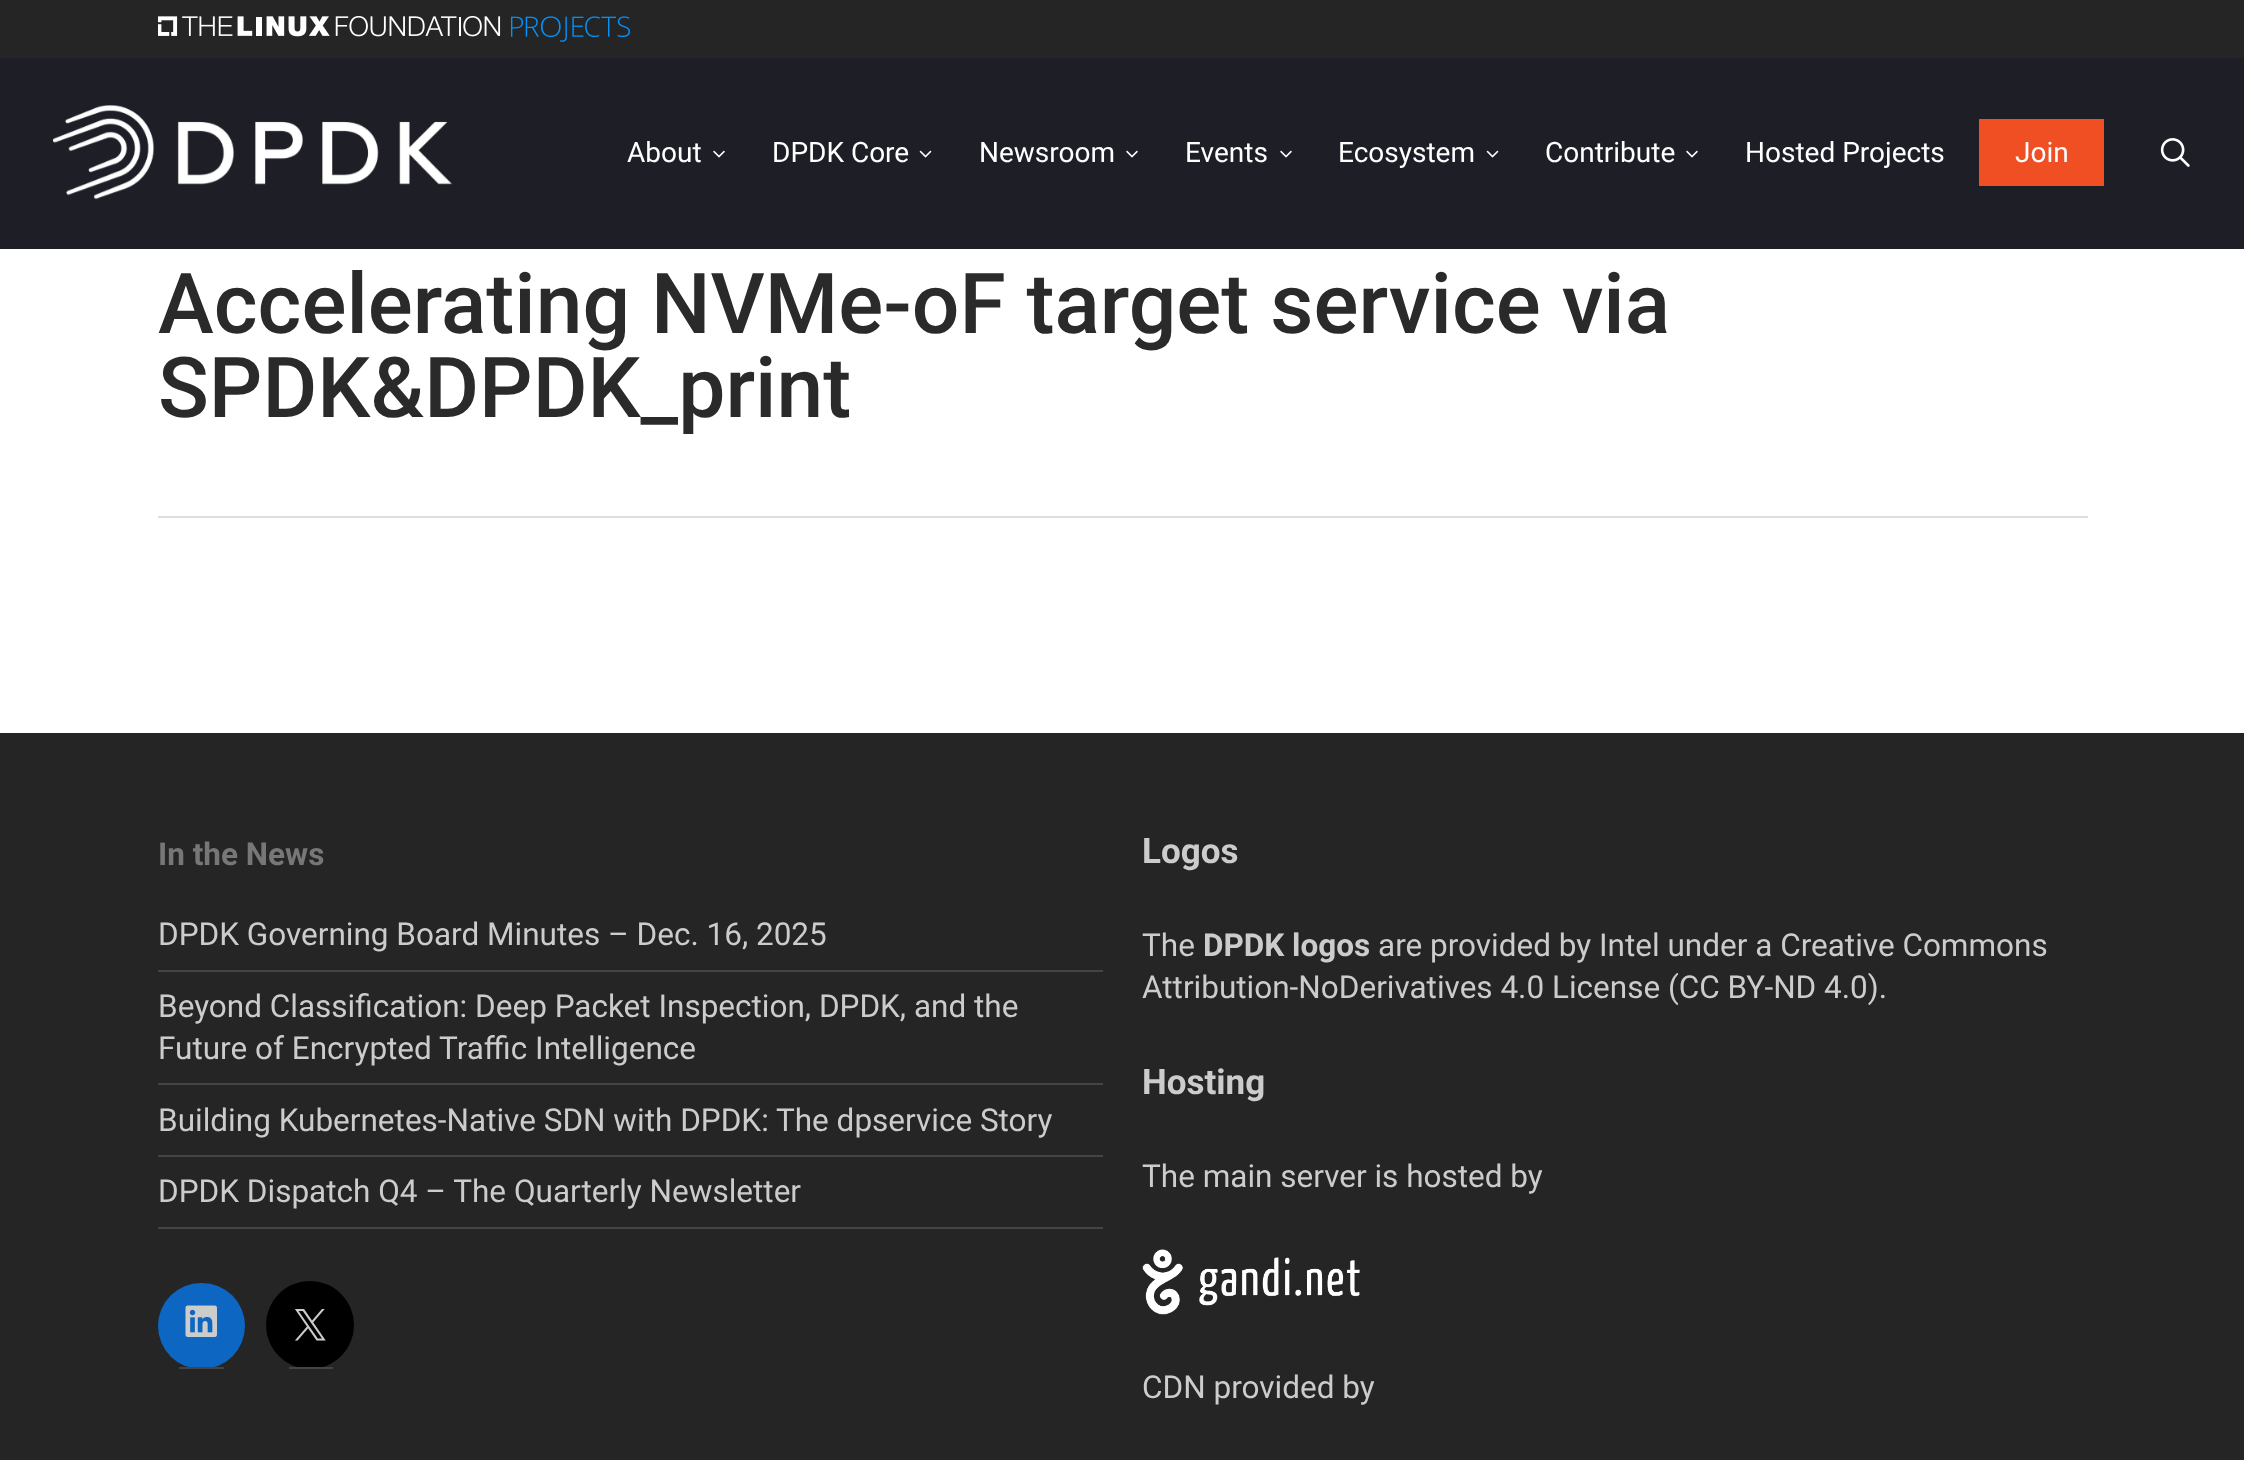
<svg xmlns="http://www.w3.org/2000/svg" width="2244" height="1460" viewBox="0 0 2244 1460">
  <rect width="100%" height="100%" fill="rgb(255,255,255)"/>
  <rect x="0" y="0" width="2244" height="58" fill="rgb(37,37,37)"/>
  <image x="158" y="15" width="472" height="27" href="pic1.png"/>
  <rect x="0" y="58" width="2244" height="191" fill="rgb(30,30,39)"/>
  <image x="52" y="105" width="400" height="95" href="pic2.png"/>
  <text x="627" y="162" font-family="Roboto" font-size="28" fill="rgb(255,255,255)">About</text>
  <image x="713" y="150" width="12" height="8" href="pic3.png"/>
  <text x="772" y="162" font-family="Roboto" font-size="28" fill="rgb(255,255,255)">DPDK Core</text>
  <image x="919" y="150" width="13" height="8" href="pic4.png"/>
  <text x="979" y="162" font-family="Roboto" font-size="28" fill="rgb(255,255,255)">Newsroom</text>
  <image x="1126" y="150" width="12" height="8" href="pic3.png"/>
  <text x="1185" y="162" font-family="Roboto" font-size="28" fill="rgb(255,255,255)">Events</text>
  <image x="1280" y="150" width="12" height="8" href="pic3.png"/>
  <text x="1338" y="162" font-family="Roboto" font-size="28" fill="rgb(255,255,255)">Ecosystem</text>
  <image x="1486" y="150" width="13" height="8" href="pic4.png"/>
  <text x="1545" y="162" font-family="Roboto" font-size="28" fill="rgb(255,255,255)">Contribute</text>
  <image x="1686" y="150" width="12" height="8" href="pic3.png"/>
  <text x="1745" y="162" font-family="Roboto" font-size="28" fill="rgb(255,255,255)">Hosted Projects</text>
  <rect x="1979" y="119" width="125" height="67" fill="rgb(240,78,35)"/>
  <text x="2015" y="162" font-family="Roboto" font-size="28" fill="rgb(255,255,255)">Join</text>
  <image x="2160" y="138" width="30" height="29" href="pic5.png"/>
  <rect x="158" y="516" width="1930" height="2" fill="rgb(221,221,221)"/>
  <g font-family="Roboto" font-size="84" font-weight="500" fill="rgb(42,42,42)">
    <text>
      <tspan x="158" y="333">Accelerating NVMe-oF target service via</tspan>
      <tspan x="158" y="417">SPDK&amp;DPDK_print</tspan>
    </text>
  </g>
  <rect x="0" y="733" width="2244" height="727" fill="rgb(37,37,37)"/>
  <text x="158" y="865" font-family="Roboto" font-size="31.5" font-weight="bold" fill="rgb(119,119,119)">In the News</text>
  <rect x="158" y="970" width="945" height="2" fill="rgb(68,68,68)"/>
  <text x="158" y="945" font-family="Roboto" font-size="31.5" fill="rgb(204,204,204)">DPDK Governing Board Minutes – Dec. 16, 2025</text>
  <rect x="158" y="1083" width="945" height="2" fill="rgb(68,68,68)"/>
  <g font-family="Roboto" font-size="31.5" fill="rgb(204,204,204)">
    <text>
      <tspan x="158" y="1017">Beyond Classification: Deep Packet Inspection, DPDK, and the</tspan>
      <tspan x="158" y="1059">Future of Encrypted Traffic Intelligence</tspan>
    </text>
  </g>
  <rect x="158" y="1155" width="945" height="2" fill="rgb(68,68,68)"/>
  <text x="158" y="1131" font-family="Roboto" font-size="31.5" fill="rgb(204,204,204)">Building Kubernetes-Native SDN with DPDK: The dpservice Story</text>
  <rect x="158" y="1227" width="945" height="2" fill="rgb(68,68,68)"/>
  <text x="158" y="1202" font-family="Roboto" font-size="31.5" fill="rgb(204,204,204)">DPDK Dispatch Q4 – The Quarterly Newsletter</text>
  <rect x="158" y="1283" width="87" height="86" rx="43" fill="rgb(13,102,194)"/>
  <rect x="179" y="1367" width="45" height="2" fill="rgb(68,68,68)"/>
  <image x="185" y="1305" width="32" height="32" href="pic6.png"/>
  <circle cx="310" cy="1325" r="44" fill="rgb(0,0,0)"/>
  <rect x="289" y="1367" width="44" height="2" fill="rgb(68,68,68)"/>
  <image x="295" y="1309" width="31" height="32" href="pic7.png"/>
  <text x="1142" y="863" font-family="Roboto" font-size="35" font-weight="bold" fill="rgb(204,204,204)">Logos</text>
  <text x="1142" y="956" font-family="Roboto" font-size="31.5" fill="rgb(204,204,204)">The</text>
  <text x="1203" y="956" font-family="Roboto" font-size="31.5" font-weight="bold" fill="rgb(204,204,204)">DPDK logos</text>
  <g font-family="Roboto" font-size="31.5" fill="rgb(204,204,204)">
    <text x="1378" y="956">are provided by Intel under a Creative Commons</text>
    <text x="1142" y="998">Attribution-NoDerivatives 4.0 License (CC BY-ND 4.0).</text>
  </g>
  <text x="1142" y="1094" font-family="Roboto" font-size="35" font-weight="bold" fill="rgb(204,204,204)">Hosting</text>
  <text x="1142" y="1187" font-family="Roboto" font-size="31.5" fill="rgb(204,204,204)">The main server is hosted by</text>
  <image x="1142" y="1249" width="218" height="66" href="pic8.png"/>
  <text x="1142" y="1398" font-family="Roboto" font-size="31.5" fill="rgb(204,204,204)">CDN provided by</text>
</svg>
